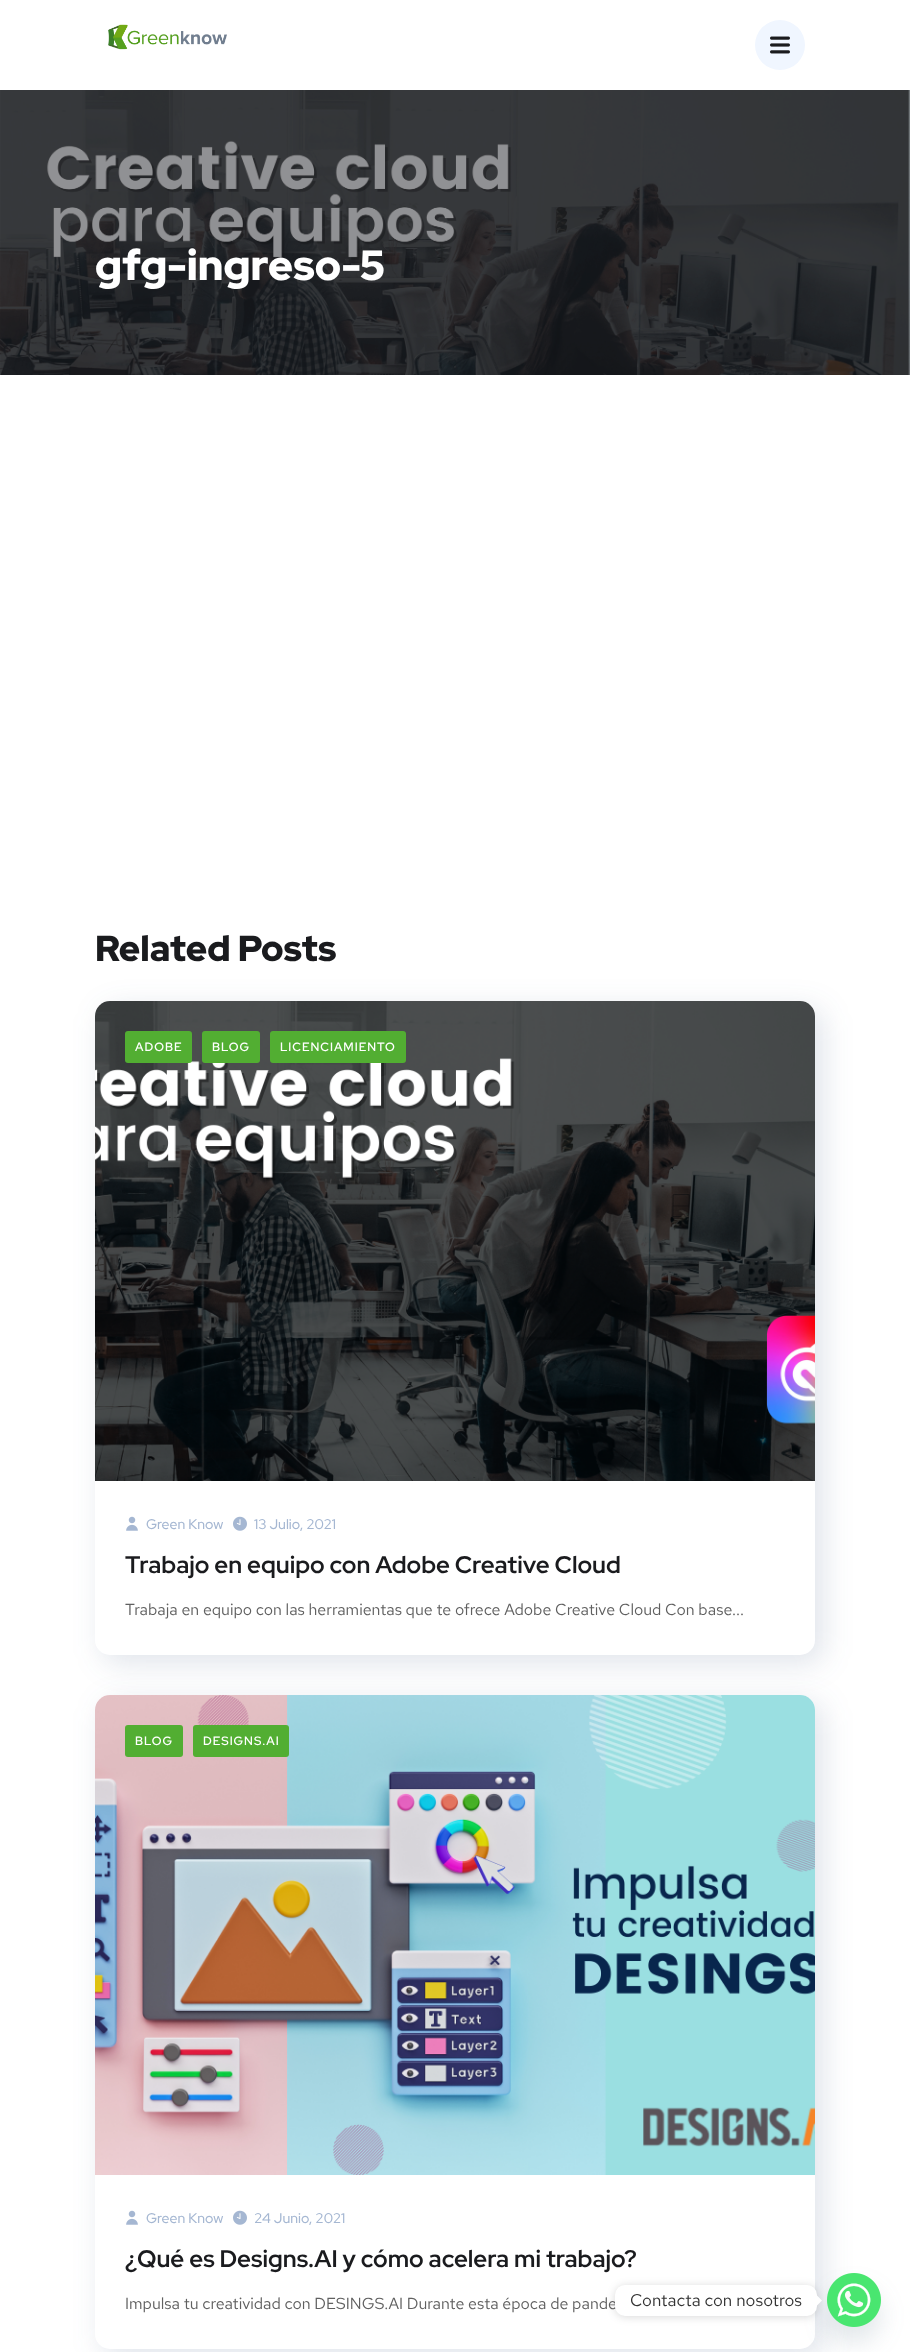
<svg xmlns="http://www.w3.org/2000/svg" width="910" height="2352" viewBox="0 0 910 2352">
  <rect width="100%" height="100%" fill="rgb(255,255,255)"/>
  <image x="108" y="24" width="119" height="26" href="pic1.png"/>
  <circle cx="780" cy="45" r="25" fill="rgb(240,246,255)"/>
  <image x="770" y="36" width="20" height="18" href="pic2.png"/>
  <image x="0" y="90" width="910" height="285" href="pic3.png"/>
  <text x="95" y="280" font-family="Red Hat Display" font-size="42" font-weight="900" fill="rgb(255,255,255)">gfg-ingreso-5</text>
  <text x="95" y="961" font-family="Red Hat Display" font-size="36" font-weight="900" fill="rgb(26,27,30)">Related Posts</text>
  <rect x="103" y="1009" width="720" height="654" rx="15" fill="rgba(42,67,113,0.15)" filter="blur(15px)"/>
  <rect x="95" y="1001" width="720" height="654" rx="15" fill="rgb(255,255,255)"/>
  <image x="95" y="1001" width="720" height="480" href="pic4.png"/>
  <rect x="125" y="1031" width="67" height="32" rx="3" fill="rgb(82,174,50)"/>
  <text x="135" y="1051" font-family="Red Hat Display" font-size="12" font-weight="600" letter-spacing="1" fill="rgb(255,255,255)">ADOBE</text>
  <rect x="202" y="1031" width="58" height="32" rx="3" fill="rgb(82,174,50)"/>
  <text x="212" y="1051" font-family="Red Hat Display" font-size="12" font-weight="600" letter-spacing="1" fill="rgb(255,255,255)">BLOG</text>
  <rect x="270" y="1031" width="136" height="32" rx="3" fill="rgb(82,174,50)"/>
  <text x="280" y="1051" font-family="Red Hat Display" font-size="12" font-weight="600" letter-spacing="1" fill="rgb(255,255,255)">LICENCIAMIENTO</text>
  <image x="126" y="1516" width="12" height="15" href="pic5.png"/>
  <text x="146" y="1529" font-family="Red Hat Display" font-size="14" font-weight="500" fill="rgb(165,183,210)">Green Know</text>
  <image x="233" y="1516" width="14" height="15" href="pic6.png"/>
  <text x="254" y="1529" font-family="Red Hat Display" font-size="14" font-weight="500" fill="rgb(165,183,210)">13 Julio, 2021</text>
  <text x="125" y="1573" font-family="Red Hat Display" font-size="24" font-weight="bold" fill="rgb(26,27,30)">Trabajo en equipo con Adobe Creative Cloud</text>
  <text x="125" y="1615" font-family="Red Hat Text" font-size="16" fill="rgb(96,96,96)">Trabaja en equipo con las herramientas que te ofrece Adobe Creative Cloud Con base...</text>
  <rect x="103" y="1703" width="720" height="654" rx="15" fill="rgba(42,67,113,0.15)" filter="blur(15px)"/>
  <rect x="95" y="1695" width="720" height="654" rx="15" fill="rgb(255,255,255)"/>
  <image x="95" y="1695" width="720" height="480" href="pic7.png"/>
  <rect x="125" y="1725" width="58" height="32" rx="3" fill="rgb(82,174,50)"/>
  <text x="135" y="1745" font-family="Red Hat Display" font-size="12" font-weight="600" letter-spacing="1" fill="rgb(255,255,255)">BLOG</text>
  <rect x="193" y="1725" width="96" height="32" rx="3" fill="rgb(82,174,50)"/>
  <text x="203" y="1745" font-family="Red Hat Display" font-size="12" font-weight="600" letter-spacing="1" fill="rgb(255,255,255)">DESIGNS.AI</text>
  <image x="126" y="2210" width="12" height="15" href="pic5.png"/>
  <text x="146" y="2223" font-family="Red Hat Display" font-size="14" font-weight="500" fill="rgb(165,183,210)">Green Know</text>
  <image x="233" y="2210" width="14" height="15" href="pic6.png"/>
  <text x="254" y="2223" font-family="Red Hat Display" font-size="14" font-weight="500" fill="rgb(165,183,210)">24 Junio, 2021</text>
  <text x="125" y="2267" font-family="Red Hat Display" font-size="24" font-weight="bold" fill="rgb(26,27,30)">¿Qué es Designs.AI y cómo acelera mi trabajo?</text>
  <text x="125" y="2309" font-family="Red Hat Text" font-size="16" fill="rgb(96,96,96)">Impulsa tu creatividad con DESINGS.AI Durante esta época de pande</text>
  <rect x="827" y="2289" width="54" height="54" rx="27" fill="rgba(73,104,126,0.16)" filter="blur(12px)"/>
  <image x="827" y="2273" width="54" height="54" href="pic8.png"/>
  <rect x="615" y="2286" width="202" height="31" rx="10" fill="rgba(0,0,0,0.15)" filter="blur(4px)"/>
  <rect x="615" y="2285" width="202" height="31" rx="10" fill="rgb(255,255,255)"/>
  <text x="630" y="2306" font-family="Red Hat Text" font-size="17" fill="rgb(51,51,51)">Contacta con nosotros</text>
  <path d="M817 2305.5V2295.5L822 2300.5Z" fill="rgb(255,255,255)"/>
</svg>
